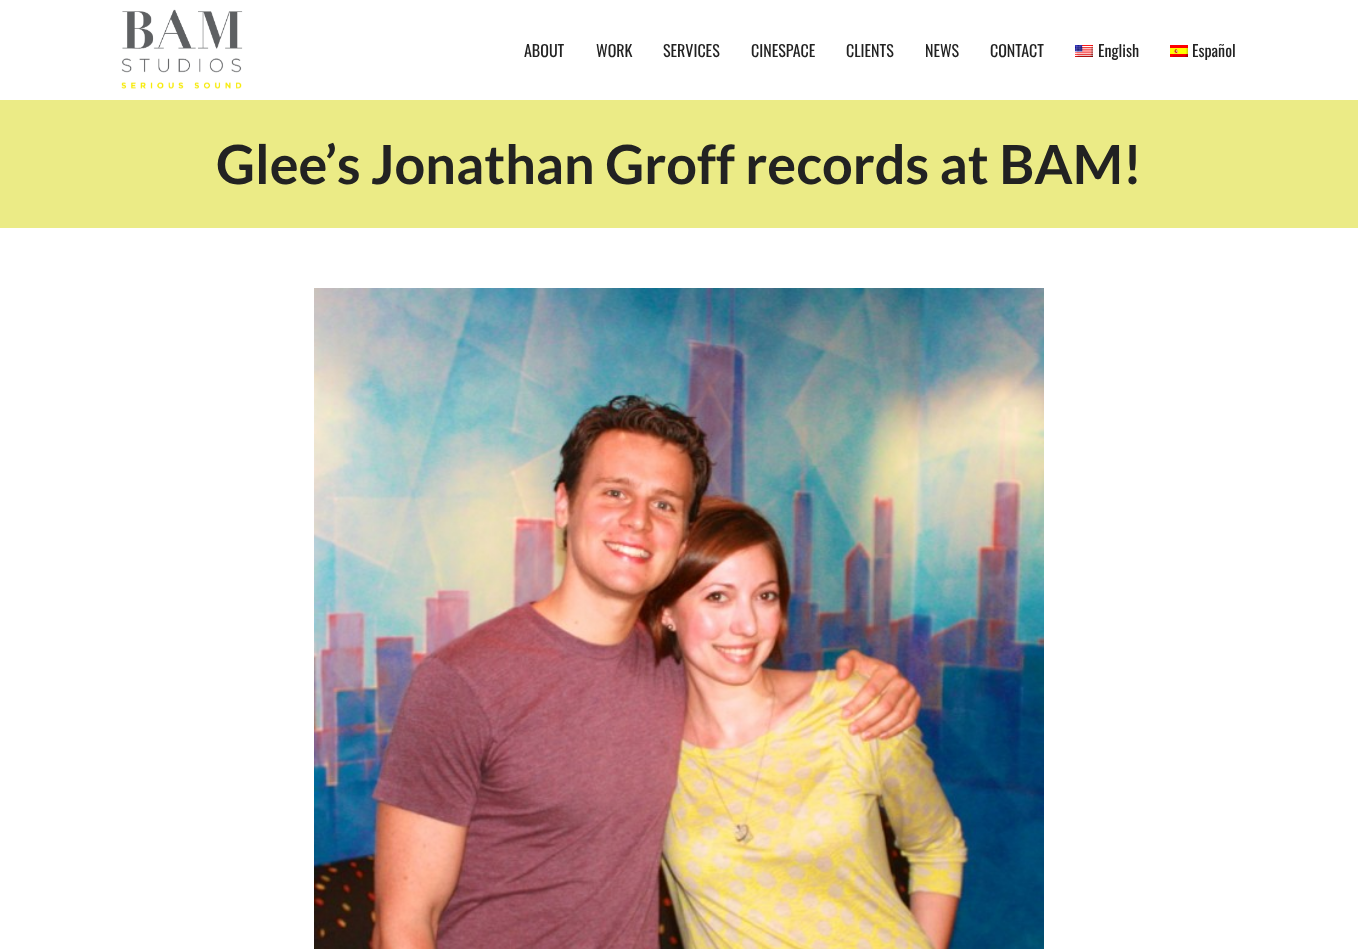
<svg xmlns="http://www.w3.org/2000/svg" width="1358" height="949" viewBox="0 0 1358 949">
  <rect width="100%" height="100%" fill="rgb(255,255,255)"/>
  <image x="121" y="9" width="122" height="80" href="pic1.png"/>
  <g font-family="Oswald" font-size="16" fill="rgb(34,34,34)">
    <text x="524" y="57">ABOUT</text>
    <text x="596" y="57">WORK</text>
    <text x="663" y="57">SERVICES</text>
    <text x="751" y="57">CINESPACE</text>
    <text x="846" y="57">CLIENTS</text>
    <text x="925" y="57">NEWS</text>
    <text x="990" y="57">CONTACT</text>
  </g>
  <image x="1075" y="45" width="18" height="12" href="pic2.png"/>
  <text x="1098" y="57" font-family="Oswald" font-size="16" fill="rgb(34,34,34)">English</text>
  <image x="1170" y="45" width="18" height="12" href="pic3.png"/>
  <text x="1192" y="57" font-family="Oswald" font-size="16" fill="rgb(34,34,34)">Español</text>
  <rect x="0" y="100" width="1358" height="128" fill="rgb(235,235,134)"/>
  <text x="216" y="184" font-family="Lato" font-size="54" font-weight="bold" fill="rgb(34,34,34)">Glee’s Jonathan Groff records at BAM!</text>
  <image x="314" y="288" width="730" height="661" href="pic4.png"/>
</svg>
